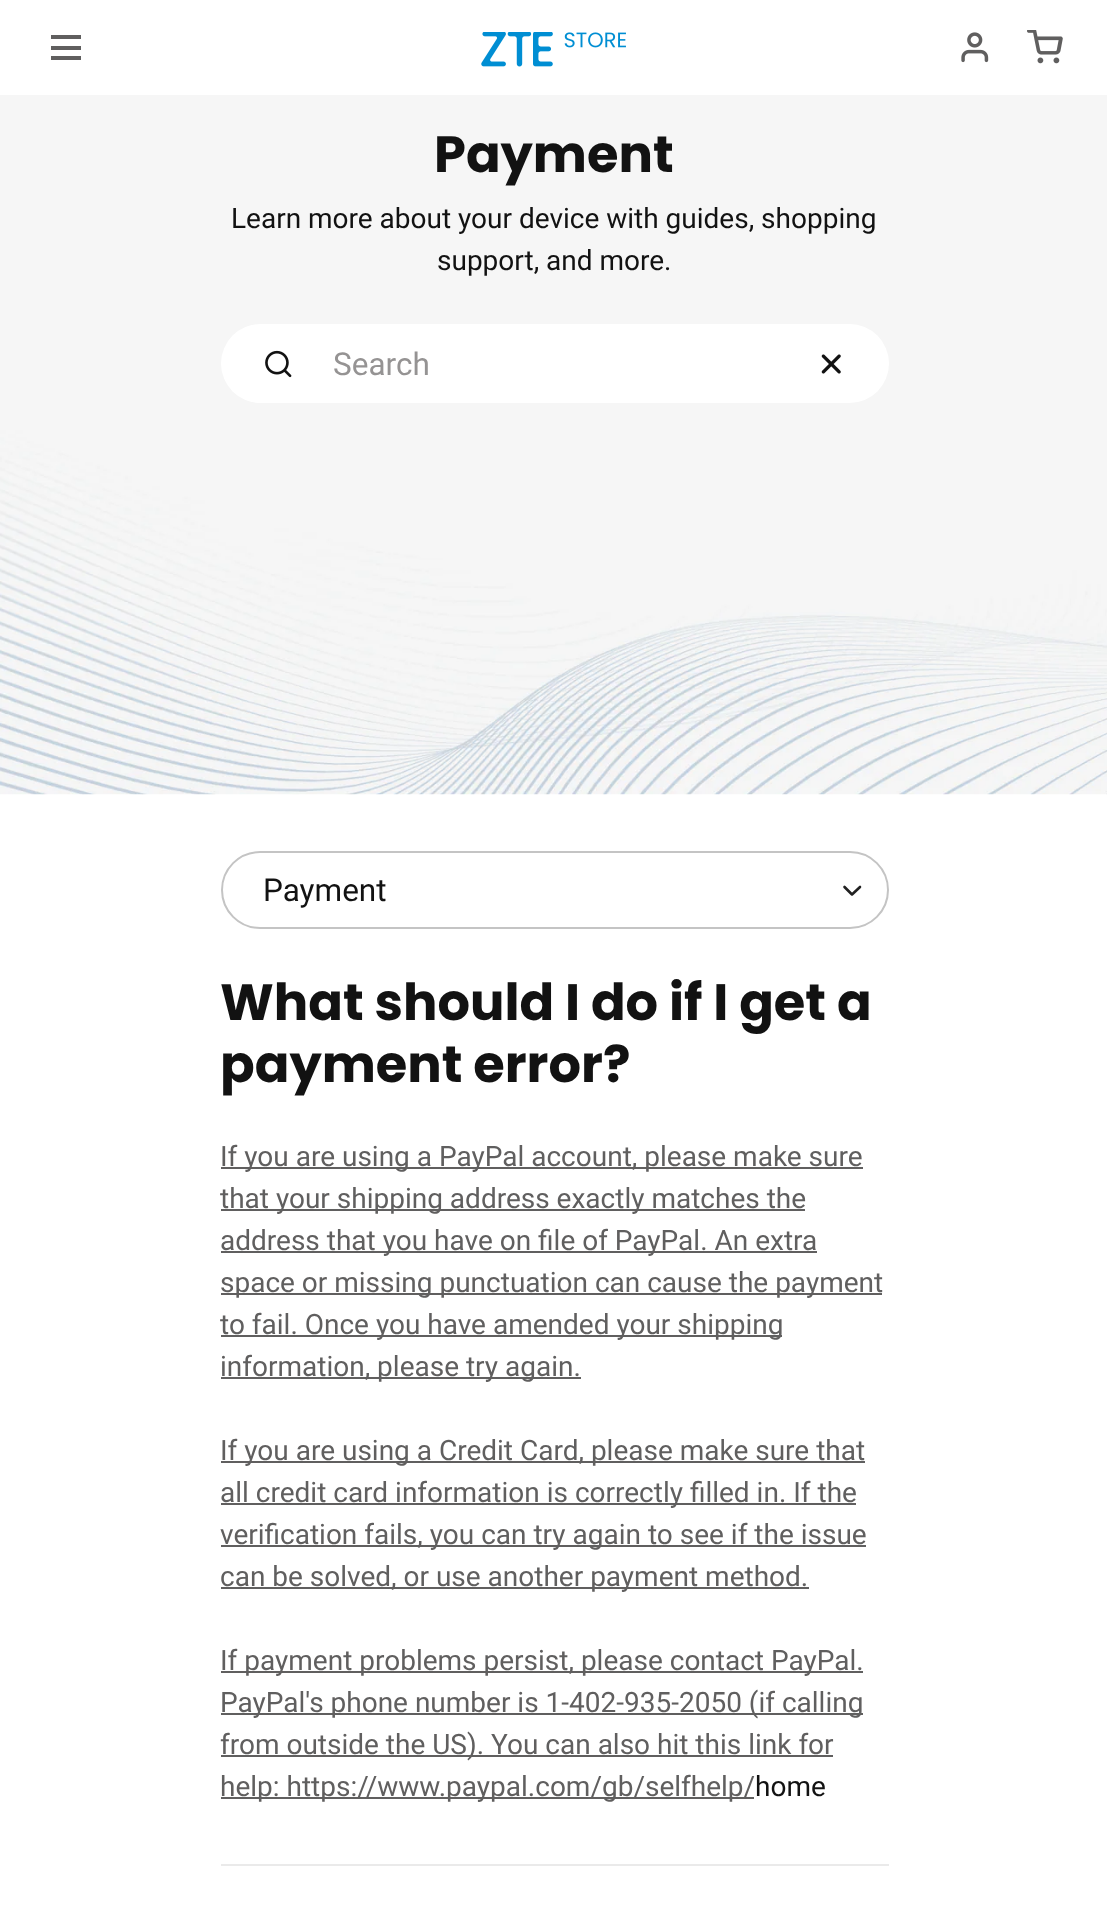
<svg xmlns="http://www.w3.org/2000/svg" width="1107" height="1929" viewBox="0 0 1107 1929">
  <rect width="100%" height="100%" fill="rgb(255,255,255)"/>
  <rect x="51" y="35" width="30" height="4" fill="rgb(96,95,95)"/>
  <rect x="51" y="46" width="30" height="4" fill="rgb(96,95,95)"/>
  <rect x="51" y="56" width="30" height="4" fill="rgb(96,95,95)"/>
  <image x="481" y="32" width="145" height="35" href="pic1.png"/>
  <image x="961" y="32" width="28" height="31" href="pic2.png"/>
  <image x="1027" y="30" width="36" height="34" href="pic3.png"/>
  <image x="0" y="95" width="1107" height="700" href="pic4.png"/>
  <text x="434" y="172" font-family="Poppins" font-size="51.1" font-weight="bold" fill="rgb(18,18,18)">Payment</text>
  <g font-family="Roboto" font-size="28" fill="rgb(18,18,18)">
    <text x="231" y="228">Learn more about your device with guides, shopping</text>
    <text x="437" y="270">support, and more.</text>
  </g>
  <rect x="221" y="324" width="668" height="79" rx="39.5" fill="rgb(255,255,255)"/>
  <image x="265" y="350" width="27" height="28" href="pic5.png"/>
  <text x="333" y="375" font-family="Roboto" font-size="31.5" fill="rgb(149,147,147)">Search</text>
  <image x="821" y="354" width="20" height="20" href="pic6.png"/>
  <path d="M844.5 887L852 894.5L860 887" fill="none" stroke="rgb(33,33,33)" stroke-width="2.6" stroke-linecap="round" stroke-linejoin="round"/>
  <rect x="222" y="852" width="666" height="76" rx="38" fill="none" stroke="rgb(196,196,196)" stroke-width="2"/>
  <text x="263" y="901" font-family="Roboto" font-size="31.5" fill="rgb(18,18,18)">Payment</text>
  <g font-family="Poppins" font-size="51.1" font-weight="bold" fill="rgb(18,18,18)">
    <text>
      <tspan x="220" y="1020">What should I do if I get a</tspan>
      <tspan x="220" y="1082">payment error?</tspan>
    </text>
  </g>
  <rect x="221" y="1167" width="642" height="2" fill="rgb(96,95,95)"/>
  <text x="220" y="1166" font-family="Roboto" font-size="28" fill="rgb(96,95,95)">If you are using a PayPal account, please make sure</text>
  <rect x="221" y="1209" width="584" height="2" fill="rgb(96,95,95)"/>
  <text x="220" y="1208" font-family="Roboto" font-size="28" fill="rgb(96,95,95)">that your shipping address exactly matches the</text>
  <rect x="221" y="1251" width="596" height="2" fill="rgb(96,95,95)"/>
  <text x="220" y="1250" font-family="Roboto" font-size="28" fill="rgb(96,95,95)">address that you have on file of PayPal. An extra</text>
  <rect x="221" y="1293" width="661" height="2" fill="rgb(96,95,95)"/>
  <text x="220" y="1292" font-family="Roboto" font-size="28" fill="rgb(96,95,95)">space or missing punctuation can cause the payment</text>
  <rect x="221" y="1335" width="561" height="2" fill="rgb(96,95,95)"/>
  <text x="220" y="1334" font-family="Roboto" font-size="28" fill="rgb(96,95,95)">to fail. Once you have amended your shipping</text>
  <rect x="221" y="1377" width="360" height="2" fill="rgb(96,95,95)"/>
  <text x="220" y="1376" font-family="Roboto" font-size="28" fill="rgb(96,95,95)">information, please try again.</text>
  <rect x="221" y="1461" width="644" height="2" fill="rgb(96,95,95)"/>
  <text x="220" y="1460" font-family="Roboto" font-size="28" fill="rgb(96,95,95)">If you are using a Credit Card, please make sure that</text>
  <rect x="221" y="1503" width="635" height="2" fill="rgb(96,95,95)"/>
  <text x="220" y="1502" font-family="Roboto" font-size="28" fill="rgb(96,95,95)">all credit card information is correctly filled in. If the</text>
  <rect x="221" y="1545" width="645" height="2" fill="rgb(96,95,95)"/>
  <text x="220" y="1544" font-family="Roboto" font-size="28" fill="rgb(96,95,95)">verification fails, you can try again to see if the issue</text>
  <rect x="221" y="1587" width="588" height="2" fill="rgb(96,95,95)"/>
  <text x="220" y="1586" font-family="Roboto" font-size="28" fill="rgb(96,95,95)">can be solved, or use another payment method.</text>
  <rect x="221" y="1671" width="642" height="2" fill="rgb(96,95,95)"/>
  <text x="220" y="1670" font-family="Roboto" font-size="28" fill="rgb(96,95,95)">If payment problems persist, please contact PayPal.</text>
  <rect x="221" y="1713" width="642" height="2" fill="rgb(96,95,95)"/>
  <text x="220" y="1712" font-family="Roboto" font-size="28" fill="rgb(96,95,95)">PayPal's phone number is 1-402-935-2050 (if calling</text>
  <rect x="221" y="1755" width="612" height="2" fill="rgb(96,95,95)"/>
  <text x="220" y="1754" font-family="Roboto" font-size="28" fill="rgb(96,95,95)">from outside the US). You can also hit this link for</text>
  <rect x="221" y="1797" width="533" height="2" fill="rgb(96,95,95)"/>
  <text x="220" y="1796" font-family="Roboto" font-size="28" fill="rgb(96,95,95)">help: https://www.paypal.com/gb/selfhelp/</text>
  <text x="755" y="1796" font-family="Roboto" font-size="28" fill="rgb(18,18,18)">home</text>
  <rect x="221" y="1864" width="668" height="2" fill="rgb(234,234,234)"/>
</svg>
